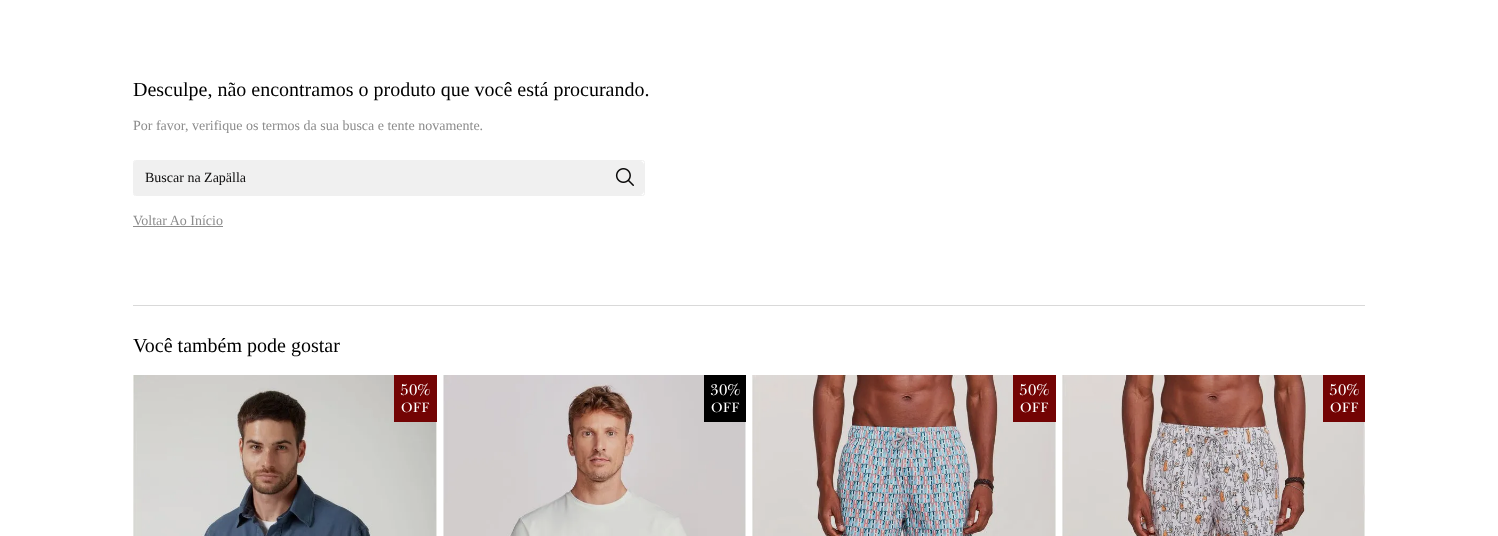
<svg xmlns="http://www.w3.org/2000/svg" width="1498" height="536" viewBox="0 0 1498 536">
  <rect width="100%" height="100%" fill="rgb(255,255,255)"/>
  <text x="133" y="96" font-family="Liberation Serif" font-size="20" fill="rgb(0,0,0)">Desculpe, não encontramos o produto que você está procurando.</text>
  <text x="133" y="130" font-family="Liberation Serif" font-size="14" fill="rgb(140,140,140)">Por favor, verifique os termos da sua busca e tente novamente.</text>
  <rect x="133.5" y="160.5" width="511" height="35" rx="2" fill="none" stroke="rgb(240,240,240)"/>
  <path d="M135.5 161H606V195H135.5C134.5 195 134 194.5 134 193.5V162.5C134 161.5 134.5 161 135.5 161Z" fill="rgb(240,240,240)"/>
  <text x="145" y="182" font-family="Liberation Serif" font-size="14" fill="rgb(11,10,10)">Buscar na Zapälla</text>
  <path d="M606 161H640C642 161 644 163 644 165V191C644 193 642 195 640 195H606Z" fill="rgb(240,240,240)"/>
  <image x="615" y="168" width="19" height="18" href="pic1.png"/>
  <text x="133" y="225" font-family="Liberation Serif" font-size="14" fill="rgb(140,140,140)">Voltar Ao Início</text>
  <rect x="133" y="226" width="90" height="1" fill="rgb(140,140,140)"/>
  <rect x="133" y="305" width="1232" height="1" fill="rgb(217,217,217)"/>
  <text x="133" y="352" font-family="Liberation Serif" font-size="20" fill="rgb(0,0,0)">Você também pode gostar</text>
  <image x="133" y="375" width="304" height="161" href="pic2.png"/>
  <rect x="394" y="375" width="43" height="47" fill="rgb(115,4,4)"/>
  <text x="400" y="395" font-family="Baskerville" font-size="16" fill="rgb(255,255,255)">50%</text>
  <text x="401" y="412" font-family="Baskerville" font-size="14" fill="rgb(255,255,255)">OFF</text>
  <image x="443" y="375" width="303" height="161" href="pic3.png"/>
  <rect x="704" y="375" width="42" height="47" fill="rgb(0,0,0)"/>
  <text x="710" y="395" font-family="Baskerville" font-size="16" fill="rgb(255,255,255)">30%</text>
  <text x="711" y="412" font-family="Baskerville" font-size="14" fill="rgb(255,255,255)">OFF</text>
  <image x="752" y="375" width="304" height="161" href="pic4.png"/>
  <rect x="1013" y="375" width="43" height="47" fill="rgb(115,4,4)"/>
  <text x="1019" y="395" font-family="Baskerville" font-size="16" fill="rgb(255,255,255)">50%</text>
  <text x="1020" y="412" font-family="Baskerville" font-size="14" fill="rgb(255,255,255)">OFF</text>
  <image x="1062" y="375" width="303" height="161" href="pic5.png"/>
  <rect x="1323" y="375" width="42" height="47" fill="rgb(115,4,4)"/>
  <text x="1329" y="395" font-family="Baskerville" font-size="16" fill="rgb(255,255,255)">50%</text>
  <text x="1330" y="412" font-family="Baskerville" font-size="14" fill="rgb(255,255,255)">OFF</text>
</svg>
